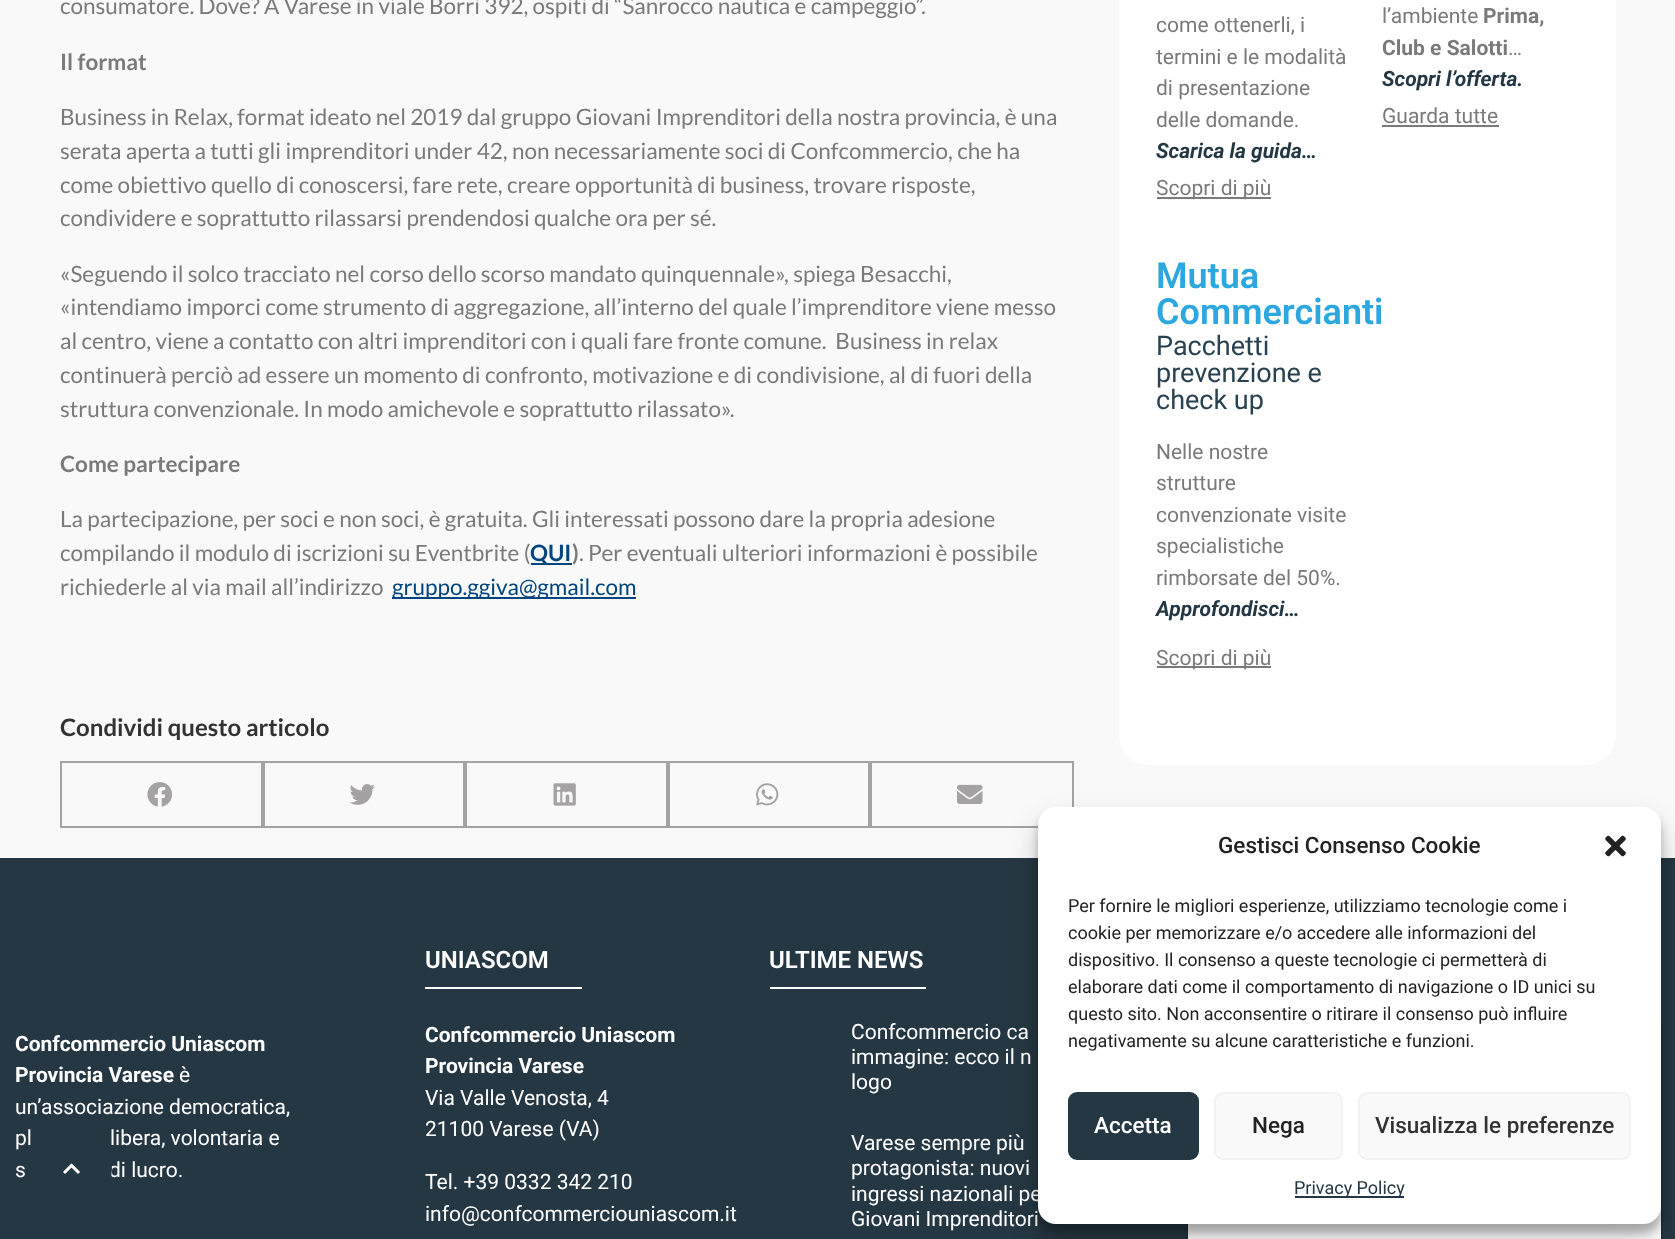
<svg xmlns="http://www.w3.org/2000/svg" width="1675" height="1239" viewBox="0 0 1675 1239">
  <rect width="100%" height="100%" fill="rgb(249,249,249)"/>
  <text x="60" y="14" font-family="Lato" font-size="22.5" fill="rgb(122,122,122)">consumatore. Dove? A Varese in viale Borri 392, ospiti di “Sanrocco nautica e campeggio”.</text>
  <text x="60" y="70" font-family="Lato" font-size="22.5" font-weight="bold" fill="rgb(122,122,122)">Il format</text>
  <g font-family="Lato" font-size="22.5" fill="rgb(122,122,122)">
    <text>
      <tspan x="60" y="125">Business in Relax, format ideato nel 2019 dal gruppo Giovani Imprenditori della nostra provincia, è una</tspan>
      <tspan x="60" y="159">serata aperta a tutti gli imprenditori under 42, non necessariamente soci di Confcommercio, che ha</tspan>
      <tspan x="60" y="193">come obiettivo quello di conoscersi, fare rete, creare opportunità di business, trovare risposte,</tspan>
      <tspan x="60" y="226">condividere e soprattutto rilassarsi prendendosi qualche ora per sé.</tspan>
    </text>
    <text xml:space="preserve"><tspan x="60" y="282">«Seguendo il solco tracciato nel corso dello scorso mandato quinquennale», spiega Besacchi,</tspan><tspan x="60" y="315">«intendiamo imporci come strumento di aggregazione, all’interno del quale l’imprenditore viene messo</tspan><tspan x="60" y="349">al centro, viene a contatto con altri imprenditori con i quali fare fronte comune.  Business in relax</tspan><tspan x="60" y="383">continuerà perciò ad essere un momento di confronto, motivazione e di condivisione, al di fuori della</tspan><tspan x="60" y="417">struttura convenzionale. In modo amichevole e soprattutto rilassato».</tspan></text>
  </g>
  <text x="60" y="472" font-family="Lato" font-size="22.5" font-weight="bold" fill="rgb(122,122,122)">Come partecipare</text>
  <g font-family="Lato" font-size="22.5" fill="rgb(122,122,122)">
    <text>
      <tspan x="60" y="527">La partecipazione, per soci e non soci, è gratuita. Gli interessati possono dare la propria adesione</tspan>
      <tspan x="60" y="561">compilando il modulo di iscrizioni su Eventbrite (</tspan>
    </text>
  </g>
  <rect x="531" y="563" width="41" height="2" fill="rgb(0,69,127)"/>
  <text x="530" y="561" font-family="Lato" font-size="22.5" font-weight="bold" fill="rgb(0,69,127)">QUI</text>
  <text x="572" y="561" font-family="Lato" font-size="22.5" font-weight="bold" fill="rgb(122,122,122)">)</text>
  <g font-family="Lato" font-size="22.5" fill="rgb(122,122,122)">
    <text x="579" y="561">. Per eventuali ulteriori informazioni è possibile</text>
    <text x="60" y="595">richiederle al via mail all’indirizzo</text>
  </g>
  <rect x="392" y="597" width="244" height="2" fill="rgb(0,69,127)"/>
  <text x="392" y="595" font-family="Lato" font-size="22.5" fill="rgb(0,69,127)">gruppo.ggiva@gmail.com</text>
  <text x="60" y="736" font-family="Lato" font-size="24" font-weight="bold" fill="rgb(50,50,50)">Condividi questo articolo</text>
  <rect x="61" y="762" width="201" height="65" fill="none" stroke="rgb(164,162,162)" stroke-width="2"/>
  <image x="147" y="782" width="26" height="25" href="pic1.png"/>
  <rect x="264" y="762" width="200" height="65" fill="none" stroke="rgb(164,162,162)" stroke-width="2"/>
  <image x="349" y="784" width="26" height="21" href="pic2.png"/>
  <rect x="466" y="762" width="201" height="65" fill="none" stroke="rgb(164,162,162)" stroke-width="2"/>
  <image x="553" y="783" width="23" height="23" href="pic3.png"/>
  <rect x="669" y="762" width="200" height="65" fill="none" stroke="rgb(164,162,162)" stroke-width="2"/>
  <image x="756" y="783" width="23" height="23" href="pic4.png"/>
  <rect x="871" y="762" width="202" height="65" fill="none" stroke="rgb(164,162,162)" stroke-width="2"/>
  <image x="957" y="784" width="26" height="20" href="pic5.png"/>
  <rect x="1119" y="-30" width="497" height="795" rx="30" fill="rgb(254,255,254)"/>
  <g font-family="Roboto" font-size="21" fill="rgb(122,122,122)">
    <text>
      <tspan x="1156" y="32">come ottenerli, i</tspan>
      <tspan x="1156" y="64">termini e le modalità</tspan>
      <tspan x="1156" y="95">di presentazione</tspan>
      <tspan x="1156" y="127">delle domande.</tspan>
    </text>
  </g>
  <text x="1156" y="158" font-family="Roboto" font-size="21" font-weight="bold" font-style="italic" fill="rgb(36,55,66)">Scarica la guida…</text>
  <rect x="1157" y="197" width="114" height="2" fill="rgb(122,122,122)"/>
  <text x="1156" y="195" font-family="Roboto" font-size="21" fill="rgb(122,122,122)">Scopri di più</text>
  <g font-family="Roboto" font-size="36" font-weight="600" fill="rgb(44,167,224)">
    <text>
      <tspan x="1156" y="288">Mutua</tspan>
      <tspan x="1156" y="324">Commercianti</tspan>
    </text>
  </g>
  <g font-family="Roboto" font-size="27" fill="rgb(42,65,79)">
    <text>
      <tspan x="1156" y="355">Pacchetti</tspan>
      <tspan x="1156" y="382">prevenzione e</tspan>
      <tspan x="1156" y="409">check up</tspan>
    </text>
  </g>
  <g font-family="Roboto" font-size="21" fill="rgb(122,122,122)">
    <text>
      <tspan x="1156" y="459">Nelle nostre</tspan>
      <tspan x="1156" y="490">strutture</tspan>
      <tspan x="1156" y="522">convenzionate visite</tspan>
      <tspan x="1156" y="553">specialistiche</tspan>
      <tspan x="1156" y="585">rimborsate del 50%.</tspan>
    </text>
  </g>
  <text x="1156" y="616" font-family="Roboto" font-size="21" font-weight="bold" font-style="italic" fill="rgb(36,55,66)">Approfondisci…</text>
  <rect x="1157" y="666" width="114" height="2" fill="rgb(122,122,122)"/>
  <g font-family="Roboto" font-size="21" fill="rgb(122,122,122)">
    <text x="1156" y="665">Scopri di più</text>
    <text x="1382" y="23">l’ambiente</text>
  </g>
  <g font-family="Roboto" font-size="21" font-weight="bold" fill="rgb(122,122,122)">
    <text x="1483" y="23">Prima,</text>
    <text x="1382" y="55">Club e Salotti</text>
  </g>
  <text x="1508" y="55" font-family="Roboto" font-size="21" fill="rgb(122,122,122)">…</text>
  <text x="1382" y="86" font-family="Roboto" font-size="21" font-weight="bold" font-style="italic" fill="rgb(36,55,66)">Scopri l’offerta.</text>
  <text x="1382" y="123" font-family="Roboto" font-size="21" fill="rgb(122,122,122)">Guarda tutte</text>
  <rect x="1382" y="125" width="117" height="2" fill="rgb(122,122,122)"/>
  <rect x="0" y="858" width="1675" height="381" fill="rgb(37,55,66)"/>
  <g font-family="Roboto" font-size="21" font-weight="bold" fill="rgb(255,255,255)">
    <text>
      <tspan x="15" y="1051">Confcommercio Uniascom</tspan>
      <tspan x="15" y="1082">Provincia Varese</tspan>
    </text>
  </g>
  <g font-family="Roboto" font-size="21" fill="rgb(255,255,255)">
    <text x="179" y="1082">è</text>
    <text>
      <tspan x="15" y="1114">un’associazione democratica,</tspan>
      <tspan x="15" y="1145">pl</tspan>
    </text>
    <text x="110" y="1145">libera, volontaria e</text>
    <text x="15" y="1177">s</text>
    <text x="109" y="1177">di lucro.</text>
  </g>
  <text x="425" y="968" font-family="Roboto" font-size="24" font-weight="600" fill="rgb(255,255,255)">UNIASCOM</text>
  <rect x="425" y="987" width="157" height="2" fill="rgb(255,255,255)"/>
  <g font-family="Roboto" font-size="21" font-weight="bold" fill="rgb(255,255,255)">
    <text>
      <tspan x="425" y="1042">Confcommercio Uniascom</tspan>
      <tspan x="425" y="1073">Provincia Varese</tspan>
    </text>
  </g>
  <g font-family="Roboto" font-size="21" fill="rgb(255,255,255)">
    <text>
      <tspan x="425" y="1105">Via Valle Venosta, 4</tspan>
      <tspan x="425" y="1136">21100 Varese (VA)</tspan>
    </text>
    <text>
      <tspan x="425" y="1189">Tel. +39 0332 342 210</tspan>
      <tspan x="425" y="1221">info@confcommerciouniascom.it</tspan>
    </text>
  </g>
  <text x="769" y="968" font-family="Roboto" font-size="24" font-weight="600" fill="rgb(255,255,255)">ULTIME NEWS</text>
  <rect x="770" y="987" width="156" height="2" fill="rgb(255,255,255)"/>
  <g font-family="Roboto" font-size="21" fill="rgb(255,255,255)">
    <text>
      <tspan x="851" y="1039">Confcommercio ca</tspan>
      <tspan x="851" y="1064">immagine: ecco il n</tspan>
      <tspan x="851" y="1089">logo</tspan>
    </text>
    <text>
      <tspan x="851" y="1150">Varese sempre più</tspan>
      <tspan x="851" y="1175">protagonista: nuovi</tspan>
      <tspan x="851" y="1201">ingressi nazionali pe</tspan>
      <tspan x="851" y="1226">Giovani Imprenditori</tspan>
    </text>
  </g>
  <rect x="1188" y="1019" width="473" height="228" rx="5" fill="rgba(0,0,0,0.5)" filter="blur(1px)"/>
  <rect x="1188" y="1206" width="473" height="33" fill="rgb(255,255,255)"/>
  <rect x="1038" y="816" width="623" height="417" rx="18" fill="rgba(0,0,0,0.23)" filter="blur(4.5px)"/>
  <rect x="1038" y="822" width="623" height="417" rx="18" fill="rgba(0,0,0,0.19)" filter="blur(15px)"/>
  <rect x="1038" y="807" width="623" height="417" rx="18" fill="rgb(255,255,255)"/>
  <text x="1218" y="853" font-family="Roboto" font-size="22.5" font-weight="500" fill="rgb(34,34,34)">Gestisci Consenso Cookie</text>
  <image x="1605" y="835" width="21" height="22" href="pic6.png"/>
  <g font-family="Roboto" font-size="18" fill="rgb(34,34,34)">
    <text>
      <tspan x="1068" y="912">Per fornire le migliori esperienze, utilizziamo tecnologie come i</tspan>
      <tspan x="1068" y="939">cookie per memorizzare e/o accedere alle informazioni del</tspan>
      <tspan x="1068" y="966">dispositivo. Il consenso a queste tecnologie ci permetterà di</tspan>
      <tspan x="1068" y="993">elaborare dati come il comportamento di navigazione o ID unici su</tspan>
      <tspan x="1068" y="1020">questo sito. Non acconsentire o ritirare il consenso può influire</tspan>
      <tspan x="1068" y="1047">negativamente su alcune caratteristiche e funzioni.</tspan>
    </text>
  </g>
  <rect x="1069" y="1093" width="129" height="66" rx="8" fill="rgb(37,55,66)" stroke="rgb(37,55,66)" stroke-width="2"/>
  <text x="1094" y="1133" font-family="Roboto" font-size="22.5" font-weight="500" fill="rgb(255,255,255)">Accetta</text>
  <rect x="1215" y="1093" width="127" height="66" rx="8" fill="rgb(249,249,249)" stroke="rgb(242,242,242)" stroke-width="2"/>
  <text x="1252" y="1133" font-family="Roboto" font-size="22.5" font-weight="500" fill="rgb(34,34,34)">Nega</text>
  <rect x="1359" y="1093" width="271" height="66" rx="8" fill="rgb(249,249,249)" stroke="rgb(242,242,242)" stroke-width="2"/>
  <text x="1375" y="1133" font-family="Roboto" font-size="22.5" font-weight="500" fill="rgb(50,50,50)">Visualizza le preferenze</text>
  <rect x="1295" y="1196" width="109" height="2" fill="rgb(37,55,66)"/>
  <text x="1294" y="1194" font-family="Roboto" font-size="18" fill="rgb(36,55,66)">Privacy Policy</text>
  <ellipse cx="71" cy="1169" rx="41" ry="40" fill="rgb(37,55,66)"/>
  <image x="63" y="1163" width="17" height="11" href="pic7.png"/>
</svg>
